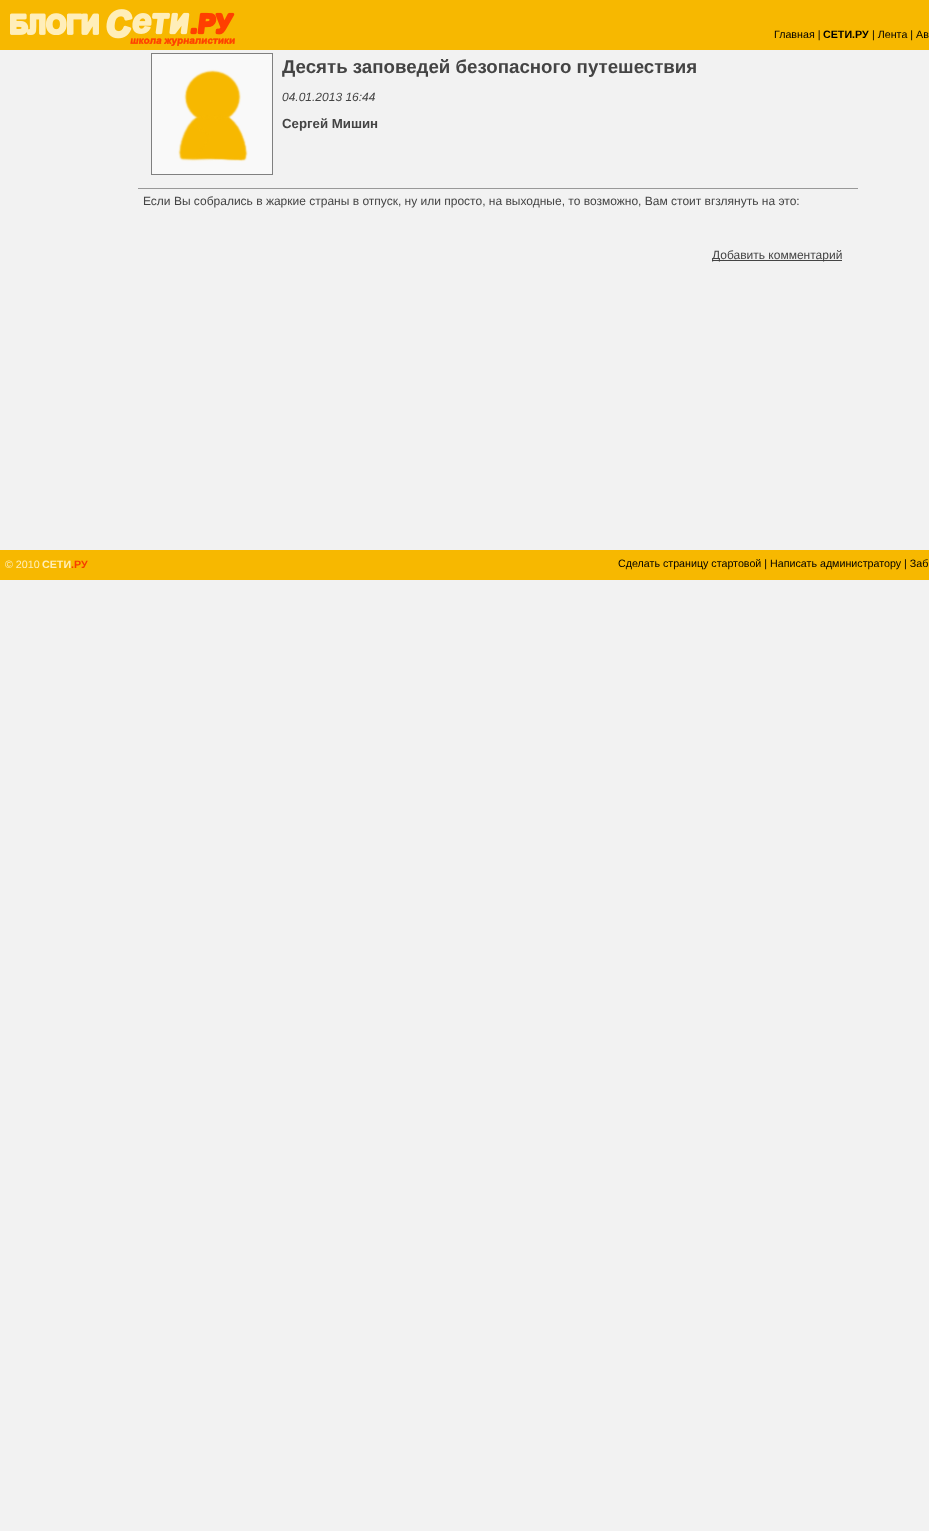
<svg xmlns="http://www.w3.org/2000/svg" width="929" height="1531" viewBox="0 0 929 1531">
  <rect width="100%" height="100%" fill="rgb(242,242,242)"/>
  <rect x="0" y="0" width="929" height="50" fill="rgb(247,184,0)"/>
  <image x="10" y="13" width="89" height="22" href="pic1.png"/>
  <image x="106" y="9" width="129" height="37" href="pic2.png"/>
  <text x="774" y="38" font-family="Liberation Sans" font-size="10.7" fill="rgb(0,0,0)">Главная |</text>
  <text x="823" y="38" font-family="Liberation Sans" font-size="10.7" font-weight="bold" fill="rgb(0,0,0)">СЕТИ.РУ</text>
  <text x="872" y="38" font-family="Liberation Sans" font-size="10.7" fill="rgb(0,0,0)">| Лента | Ав</text>
  <rect x="151.5" y="53.5" width="121" height="121" fill="none" stroke="rgb(128,128,128)"/>
  <image x="152" y="54" width="120" height="120" href="pic3.png"/>
  <text x="282" y="73" font-family="Liberation Sans" font-size="18.7" font-weight="bold" fill="rgb(68,68,68)">Десять заповедей безопасного путешествия</text>
  <text x="282" y="101" font-family="Liberation Sans" font-size="12" font-style="italic" fill="rgb(68,68,68)">04.01.2013 16:44</text>
  <text x="282" y="128" font-family="Liberation Sans" font-size="13.25" font-weight="bold" fill="rgb(68,68,68)">Сергей Мишин</text>
  <rect x="138" y="188" width="720" height="1" fill="rgb(153,153,153)"/>
  <text x="143" y="205" font-family="Liberation Sans" font-size="12" fill="rgb(68,68,68)">Если Вы собрались в жаркие страны в отпуск, ну или просто, на выходные, то возможно, Вам стоит вгзлянуть на это:</text>
  <rect x="712" y="260" width="130" height="1" fill="rgb(68,68,68)"/>
  <text x="712" y="259" font-family="Liberation Sans" font-size="12" fill="rgb(68,68,68)">Добавить комментарий</text>
  <rect x="0" y="550" width="929" height="30" fill="rgb(247,184,0)"/>
  <text x="5" y="568" font-family="Liberation Sans" font-size="10.7" fill="rgb(255,238,185)">© 2010</text>
  <text x="42" y="568" font-family="Liberation Sans" font-size="10.7" font-weight="bold" fill="rgb(255,238,185)">СЕТИ</text>
  <text x="71" y="568" font-family="Liberation Sans" font-size="10.7" font-weight="bold" fill="rgb(247,60,0)">.РУ</text>
  <text x="618" y="567" font-family="Liberation Sans" font-size="10.7" fill="rgb(0,0,0)">Сделать страницу стартовой | Написать администратору | Заб</text>
</svg>
